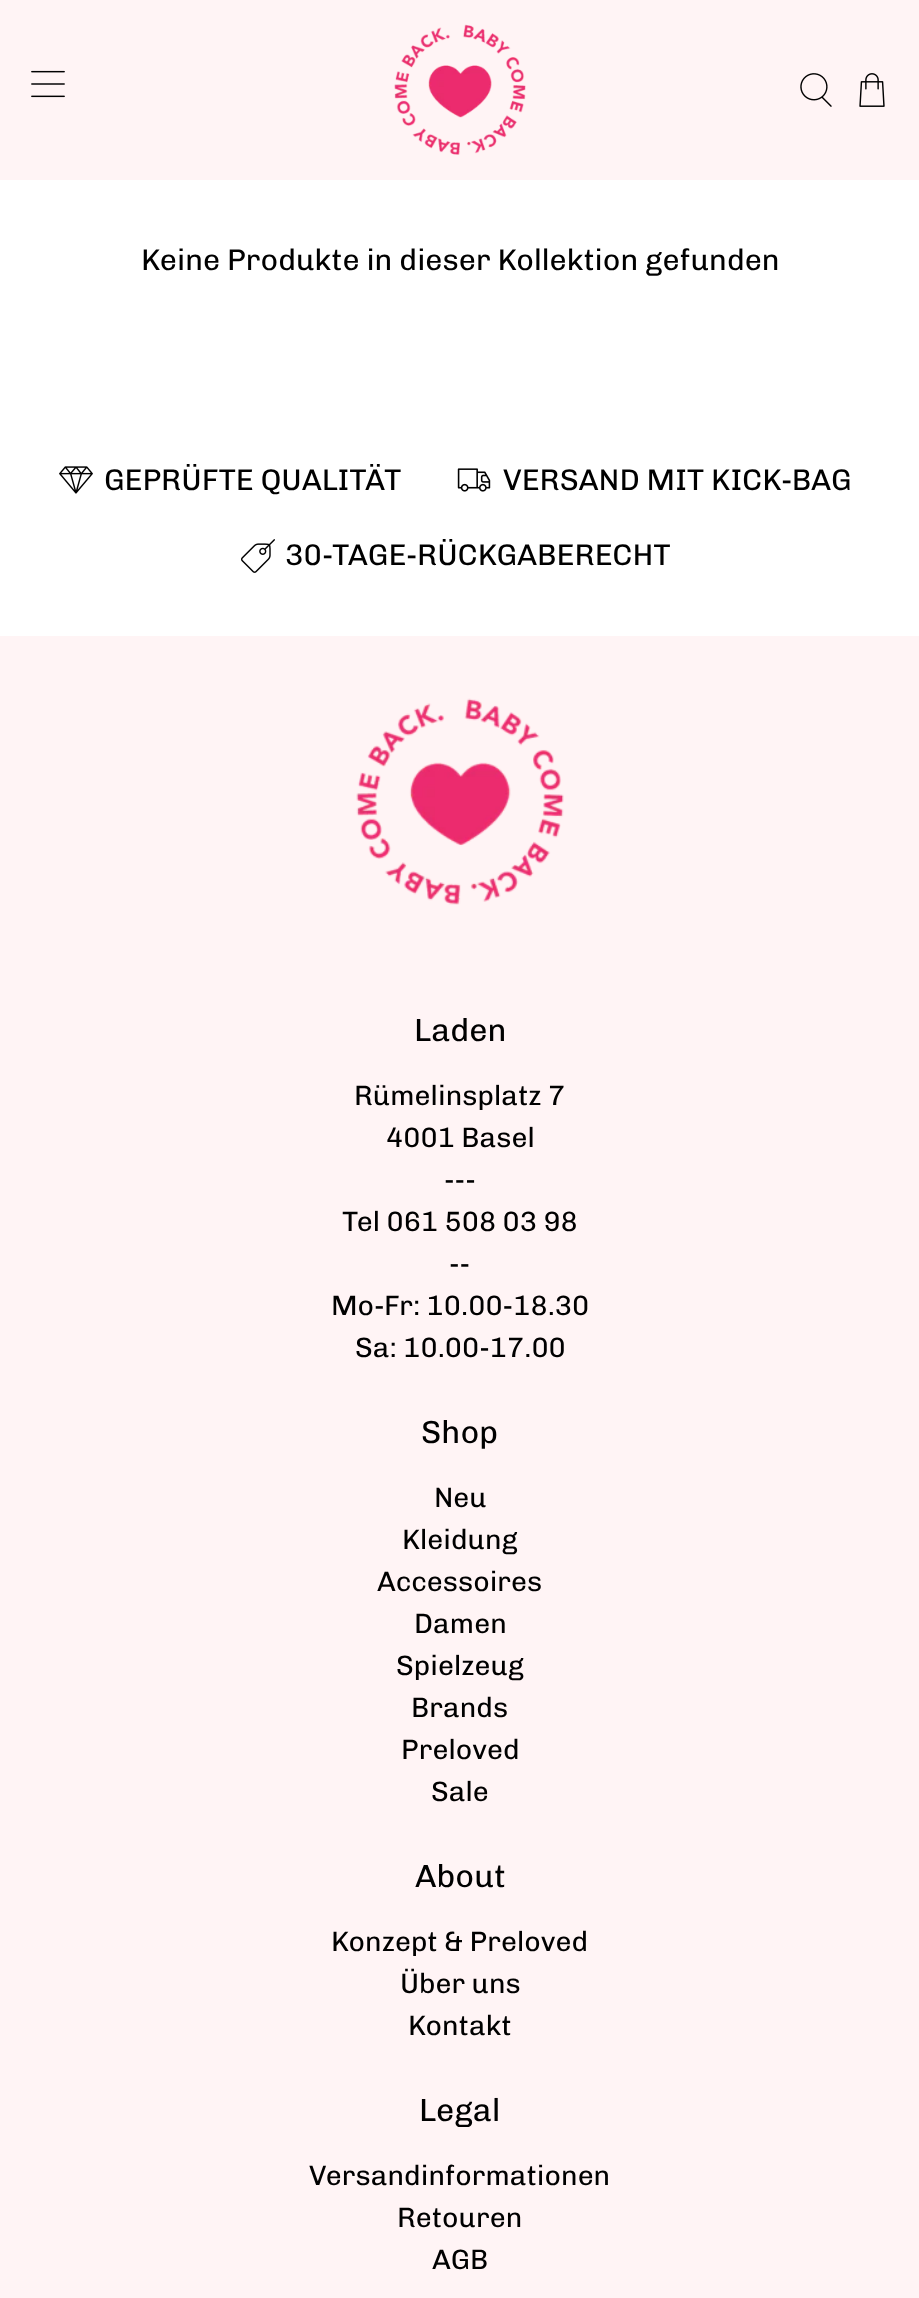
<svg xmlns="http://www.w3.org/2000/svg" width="919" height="2298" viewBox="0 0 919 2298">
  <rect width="100%" height="100%" fill="rgb(255,255,255)"/>
  <rect x="0" y="0" width="919" height="180" fill="rgb(255,244,245)"/>
  <image x="31" y="70" width="34" height="28" href="pic1.png"/>
  <image x="394" y="24" width="132" height="131" href="pic2.png"/>
  <image x="800" y="73" width="32" height="34" href="pic3.png"/>
  <image x="859" y="73" width="26" height="34" href="pic4.png"/>
  <text x="141" y="270" font-family="Chivo" font-size="30" fill="rgb(0,0,0)">Keine Produkte in dieser Kollektion gefunden</text>
  <image x="59" y="466" width="34" height="28" href="pic5.png"/>
  <text x="104" y="490" font-family="Chivo" font-size="30" fill="rgb(0,0,0)">GEPRÜFTE QUALITÄT</text>
  <image x="457" y="468" width="34" height="24" href="pic6.png"/>
  <text x="503" y="490" font-family="Chivo" font-size="30" fill="rgb(0,0,0)">VERSAND MIT KICK-BAG</text>
  <image x="241" y="539" width="34" height="34" href="pic7.png"/>
  <text x="285" y="565" font-family="Chivo" font-size="30" fill="rgb(0,0,0)">30-TAGE-RÜCKGABERECHT</text>
  <rect x="0" y="636" width="919" height="1662" fill="rgb(255,244,245)"/>
  <image x="356" y="698" width="208" height="207" href="pic8.png"/>
  <text x="414" y="1041" font-family="Chivo" font-size="32" fill="rgb(0,0,0)">Laden</text>
  <g font-family="Chivo" font-size="28" fill="rgb(0,0,0)">
    <text x="354" y="1105">Rümelinsplatz 7</text>
    <text x="386" y="1147">4001 Basel</text>
    <text x="444" y="1189">---</text>
    <text x="342" y="1231">Tel 061 508 03 98</text>
    <text x="449" y="1273">--</text>
    <text x="331" y="1315">Mo-Fr: 10.00-18.30</text>
    <text x="355" y="1357">Sa: 10.00-17.00</text>
  </g>
  <text x="421" y="1443" font-family="Chivo" font-size="32" fill="rgb(0,0,0)">Shop</text>
  <g font-family="Chivo" font-size="28" fill="rgb(0,0,0)">
    <text x="434" y="1507">Neu</text>
    <text x="402" y="1549">Kleidung</text>
    <text x="377" y="1591">Accessoires</text>
    <text x="414" y="1633">Damen</text>
    <text x="396" y="1675">Spielzeug</text>
    <text x="411" y="1717">Brands</text>
    <text x="401" y="1759">Preloved</text>
    <text x="431" y="1801">Sale</text>
  </g>
  <text x="415" y="1887" font-family="Chivo" font-size="32" fill="rgb(0,0,0)">About</text>
  <g font-family="Chivo" font-size="28" fill="rgb(0,0,0)">
    <text x="331" y="1951">Konzept &amp; Preloved</text>
    <text x="400" y="1993">Über uns</text>
    <text x="408" y="2035">Kontakt</text>
  </g>
  <text x="419" y="2121" font-family="Chivo" font-size="32" fill="rgb(0,0,0)">Legal</text>
  <g font-family="Chivo" font-size="28" fill="rgb(0,0,0)">
    <text x="309" y="2185">Versandinformationen</text>
    <text x="397" y="2227">Retouren</text>
    <text x="432" y="2269">AGB</text>
  </g>
</svg>
